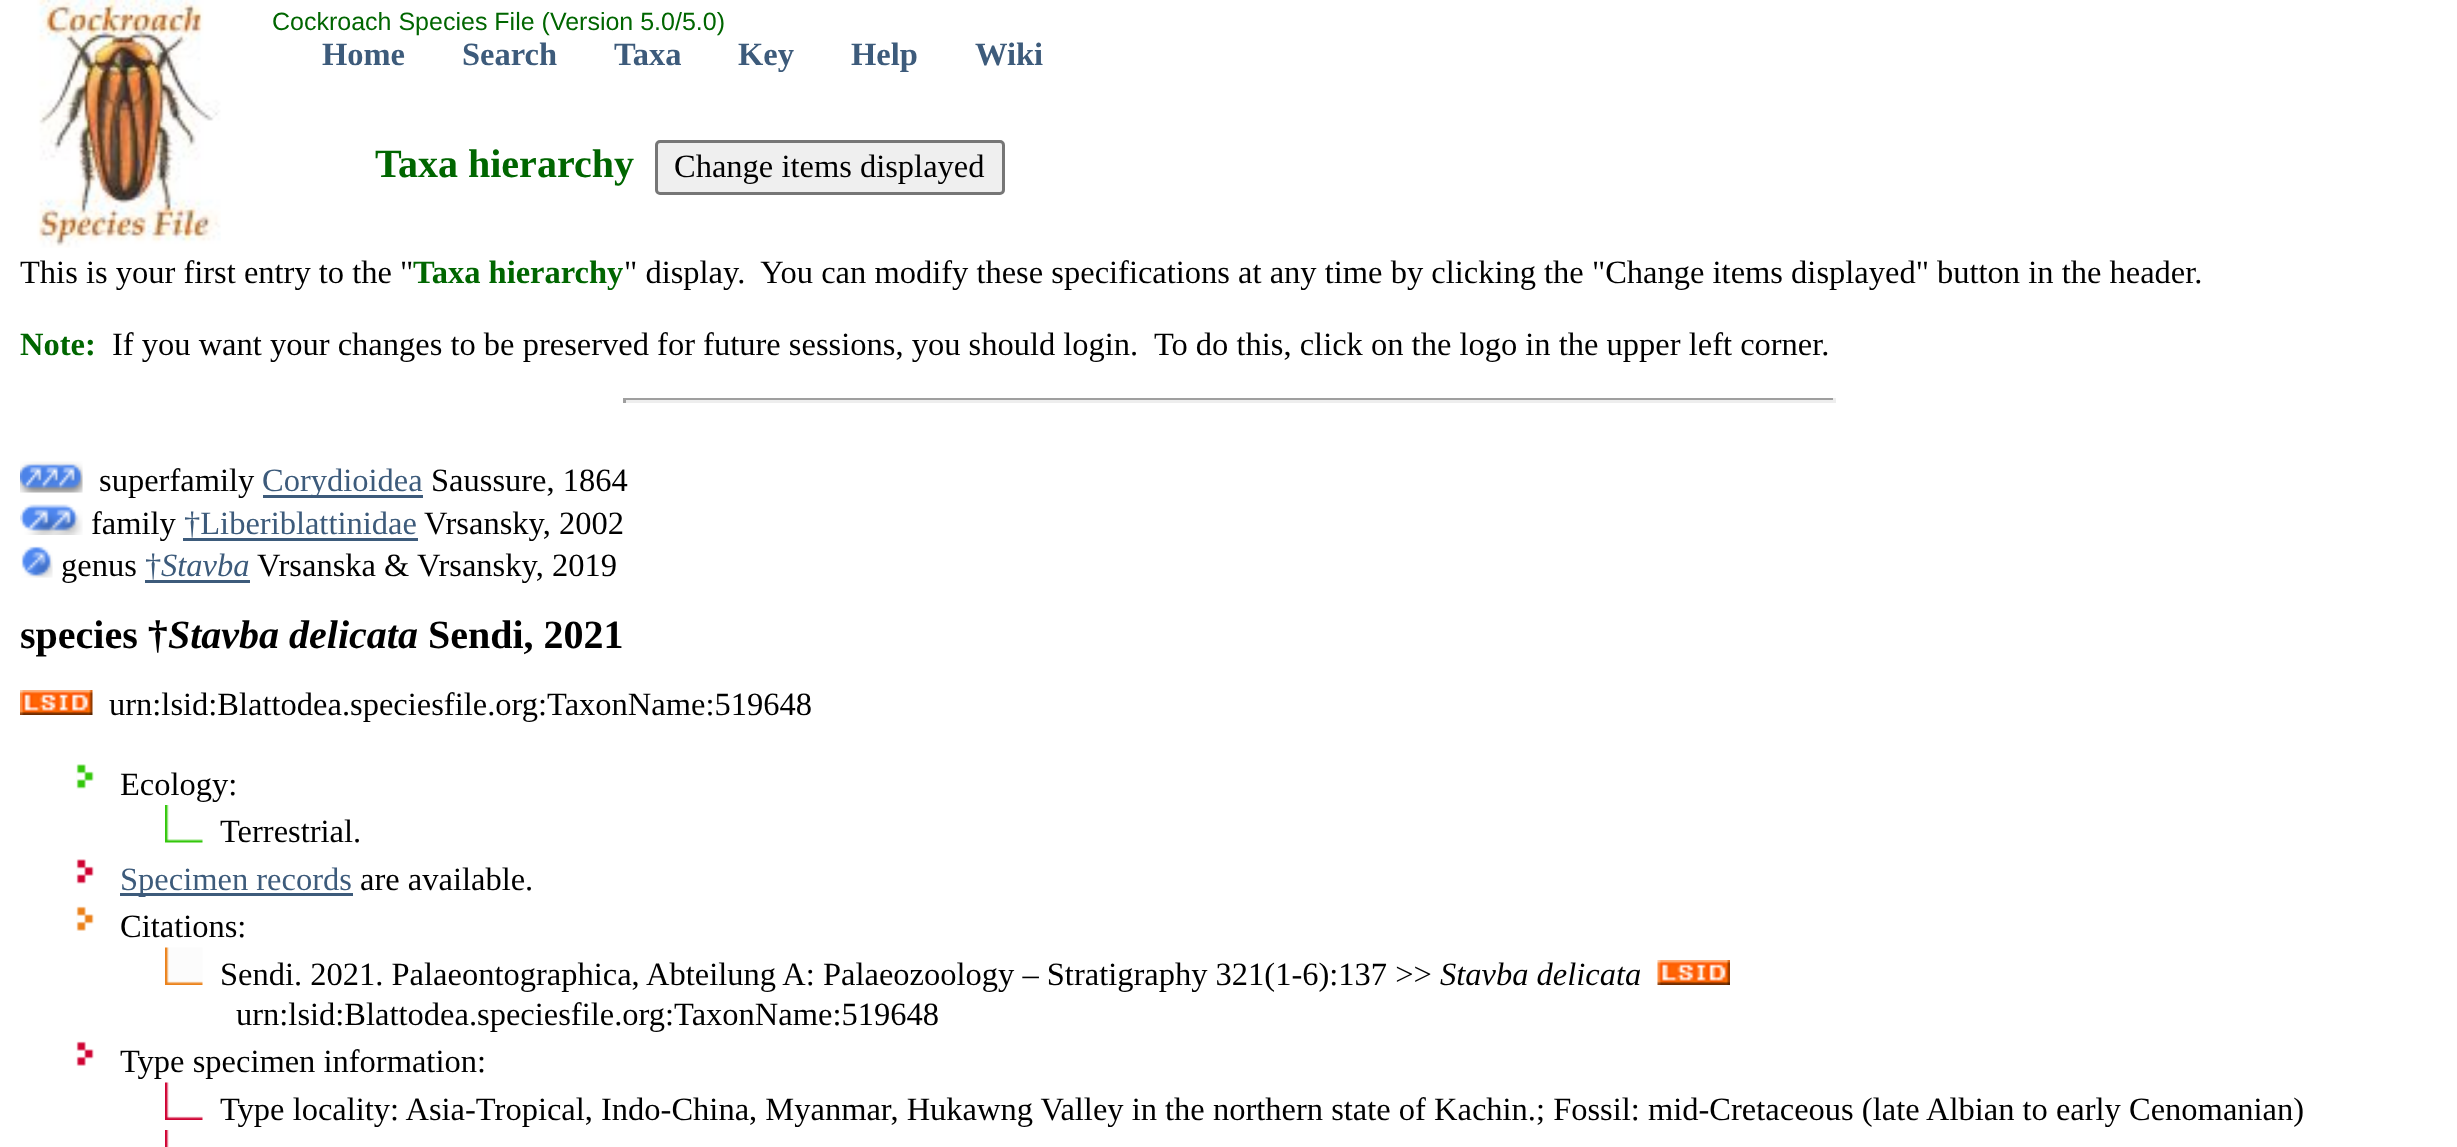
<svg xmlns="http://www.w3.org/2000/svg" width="2457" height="1147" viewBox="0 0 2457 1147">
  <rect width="100%" height="100%" fill="rgb(255,255,255)"/>
  <image x="37" y="0" width="184" height="248" href="pic1.png"/>
  <text x="272" y="30" font-family="Liberation Sans" font-size="25" fill="rgb(0,102,0)">Cockroach Species File (Version 5.0/5.0)</text>
  <g font-family="Liberation Serif" font-size="32.5" font-weight="bold" fill="rgb(61,91,123)">
    <text x="322" y="65">Home</text>
    <text x="462" y="65">Search</text>
    <text x="614" y="65">Taxa</text>
    <text x="738" y="65">Key</text>
    <text x="851" y="65">Help</text>
    <text x="975" y="65">Wiki</text>
  </g>
  <text x="375" y="177" font-family="Liberation Serif" font-size="40" font-weight="bold" fill="rgb(0,102,0)">Taxa hierarchy</text>
  <rect x="656.5" y="141.5" width="347" height="52" rx="3.5" fill="rgb(239,239,239)" stroke="rgb(118,118,118)" stroke-width="3"/>
  <g font-family="Liberation Serif" font-size="32.5" fill="rgb(0,0,0)">
    <text x="674" y="177">Change items displayed</text>
    <text x="20" y="283">This is your first entry to the "</text>
  </g>
  <text x="413" y="283" font-family="Liberation Serif" font-size="32.5" font-weight="bold" fill="rgb(0,102,0)">Taxa hierarchy</text>
  <text x="624" y="283" font-family="Liberation Serif" font-size="32.5" fill="rgb(0,0,0)" xml:space="preserve">" display.  You can modify these specifications at any time by clicking the "Change items displayed" button in the header.</text>
  <text x="20" y="355" font-family="Liberation Serif" font-size="32.5" font-weight="bold" fill="rgb(0,102,0)">Note:</text>
  <text x="112" y="355" font-family="Liberation Serif" font-size="32.5" fill="rgb(0,0,0)" xml:space="preserve">If you want your changes to be preserved for future sessions, you should login.  To do this, click on the logo in the upper left corner.</text>
  <rect x="623" y="398" width="1212" height="2" fill="rgb(159,159,159)"/>
  <rect x="1833" y="398" width="3" height="5" fill="rgb(238,238,238)"/>
  <rect x="623" y="400" width="1212" height="3" fill="rgb(238,238,238)"/>
  <rect x="623" y="398" width="3" height="5" fill="rgb(159,159,159)"/>
  <image x="20" y="461" width="63" height="32" href="pic2.png"/>
  <text x="99" y="491" font-family="Liberation Serif" font-size="32.5" fill="rgb(0,0,0)">superfamily</text>
  <rect x="263" y="495" width="160" height="3" fill="rgb(61,91,123)"/>
  <text x="262" y="491" font-family="Liberation Serif" font-size="32.5" fill="rgb(61,91,123)">Corydioidea</text>
  <text x="431" y="491" font-family="Liberation Serif" font-size="32.5" fill="rgb(0,0,0)">Saussure, 1864</text>
  <image x="20" y="504" width="63" height="31" href="pic3.png"/>
  <text x="91" y="534" font-family="Liberation Serif" font-size="32.5" fill="rgb(0,0,0)">family</text>
  <text x="184" y="534" font-family="Liberation Serif" font-size="32.5" fill="rgb(61,91,123)">†Liberiblattinidae</text>
  <rect x="183" y="538" width="235" height="3" fill="rgb(61,91,123)"/>
  <text x="424" y="534" font-family="Liberation Serif" font-size="32.5" fill="rgb(0,0,0)">Vrsansky, 2002</text>
  <image x="21" y="546" width="32" height="32" href="pic4.png"/>
  <text x="61" y="576" font-family="Liberation Serif" font-size="32.5" fill="rgb(0,0,0)">genus</text>
  <text x="145" y="576" font-family="Liberation Serif" font-size="32.5" fill="rgb(61,91,123)">†</text>
  <rect x="145" y="580" width="105" height="3" fill="rgb(61,91,123)"/>
  <text x="161" y="576" font-family="Liberation Serif" font-size="32.5" font-style="italic" fill="rgb(61,91,123)">Stavba</text>
  <text x="257" y="576" font-family="Liberation Serif" font-size="32.5" fill="rgb(0,0,0)">Vrsanska &amp; Vrsansky, 2019</text>
  <text x="20" y="648" font-family="Liberation Serif" font-size="40" font-weight="bold" fill="rgb(0,0,0)">species †</text>
  <text x="168" y="648" font-family="Liberation Serif" font-size="40" font-weight="bold" font-style="italic" fill="rgb(0,0,0)">Stavba delicata</text>
  <text x="428" y="648" font-family="Liberation Serif" font-size="40" font-weight="bold" fill="rgb(0,0,0)">Sendi, 2021</text>
  <image x="20" y="690" width="73" height="25" href="pic5.png"/>
  <text x="109" y="715" font-family="Liberation Serif" font-size="32.5" fill="rgb(0,0,0)">urn:lsid:Blattodea.speciesfile.org:TaxonName:519648</text>
  <image x="76" y="764" width="18" height="25" href="pic6.png"/>
  <text x="120" y="795" font-family="Liberation Serif" font-size="32.5" fill="rgb(0,0,0)">Ecology:</text>
  <image x="165" y="805" width="38" height="38" href="pic7.png"/>
  <text x="220" y="842" font-family="Liberation Serif" font-size="32.5" fill="rgb(0,0,0)">Terrestrial.</text>
  <image x="76" y="859" width="18" height="25" href="pic8.png"/>
  <rect x="120" y="893" width="233" height="3" fill="rgb(61,91,123)"/>
  <text x="120" y="890" font-family="Liberation Serif" font-size="32.5" fill="rgb(61,91,123)">Specimen records</text>
  <text x="360" y="890" font-family="Liberation Serif" font-size="32.5" fill="rgb(0,0,0)">are available.</text>
  <image x="76" y="906" width="18" height="25" href="pic9.png"/>
  <text x="120" y="937" font-family="Liberation Serif" font-size="32.5" fill="rgb(0,0,0)">Citations:</text>
  <image x="165" y="947" width="38" height="38" href="pic10.png"/>
  <text x="220" y="985" font-family="Liberation Serif" font-size="32.5" fill="rgb(0,0,0)">Sendi. 2021. Palaeontographica, Abteilung A: Palaeozoology – Stratigraphy 321(1-6):137 &gt;&gt;</text>
  <text x="1440" y="985" font-family="Liberation Serif" font-size="32.5" font-style="italic" fill="rgb(0,0,0)">Stavba delicata</text>
  <image x="1657" y="960" width="73" height="25" href="pic11.png"/>
  <text x="236" y="1025" font-family="Liberation Serif" font-size="32.5" fill="rgb(0,0,0)">urn:lsid:Blattodea.speciesfile.org:TaxonName:519648</text>
  <image x="76" y="1041" width="18" height="25" href="pic12.png"/>
  <text x="120" y="1072" font-family="Liberation Serif" font-size="32.5" fill="rgb(0,0,0)">Type specimen information:</text>
  <image x="165" y="1082" width="38" height="38" href="pic13.png"/>
  <text x="220" y="1120" font-family="Liberation Serif" font-size="32.5" fill="rgb(0,0,0)">Type locality: Asia-Tropical, Indo-China, Myanmar, Hukawng Valley in the northern state of Kachin.; Fossil: mid-Cretaceous (late Albian to early Cenomanian)</text>
  <image x="165" y="1130" width="4" height="17" href="pic14.png"/>
</svg>
